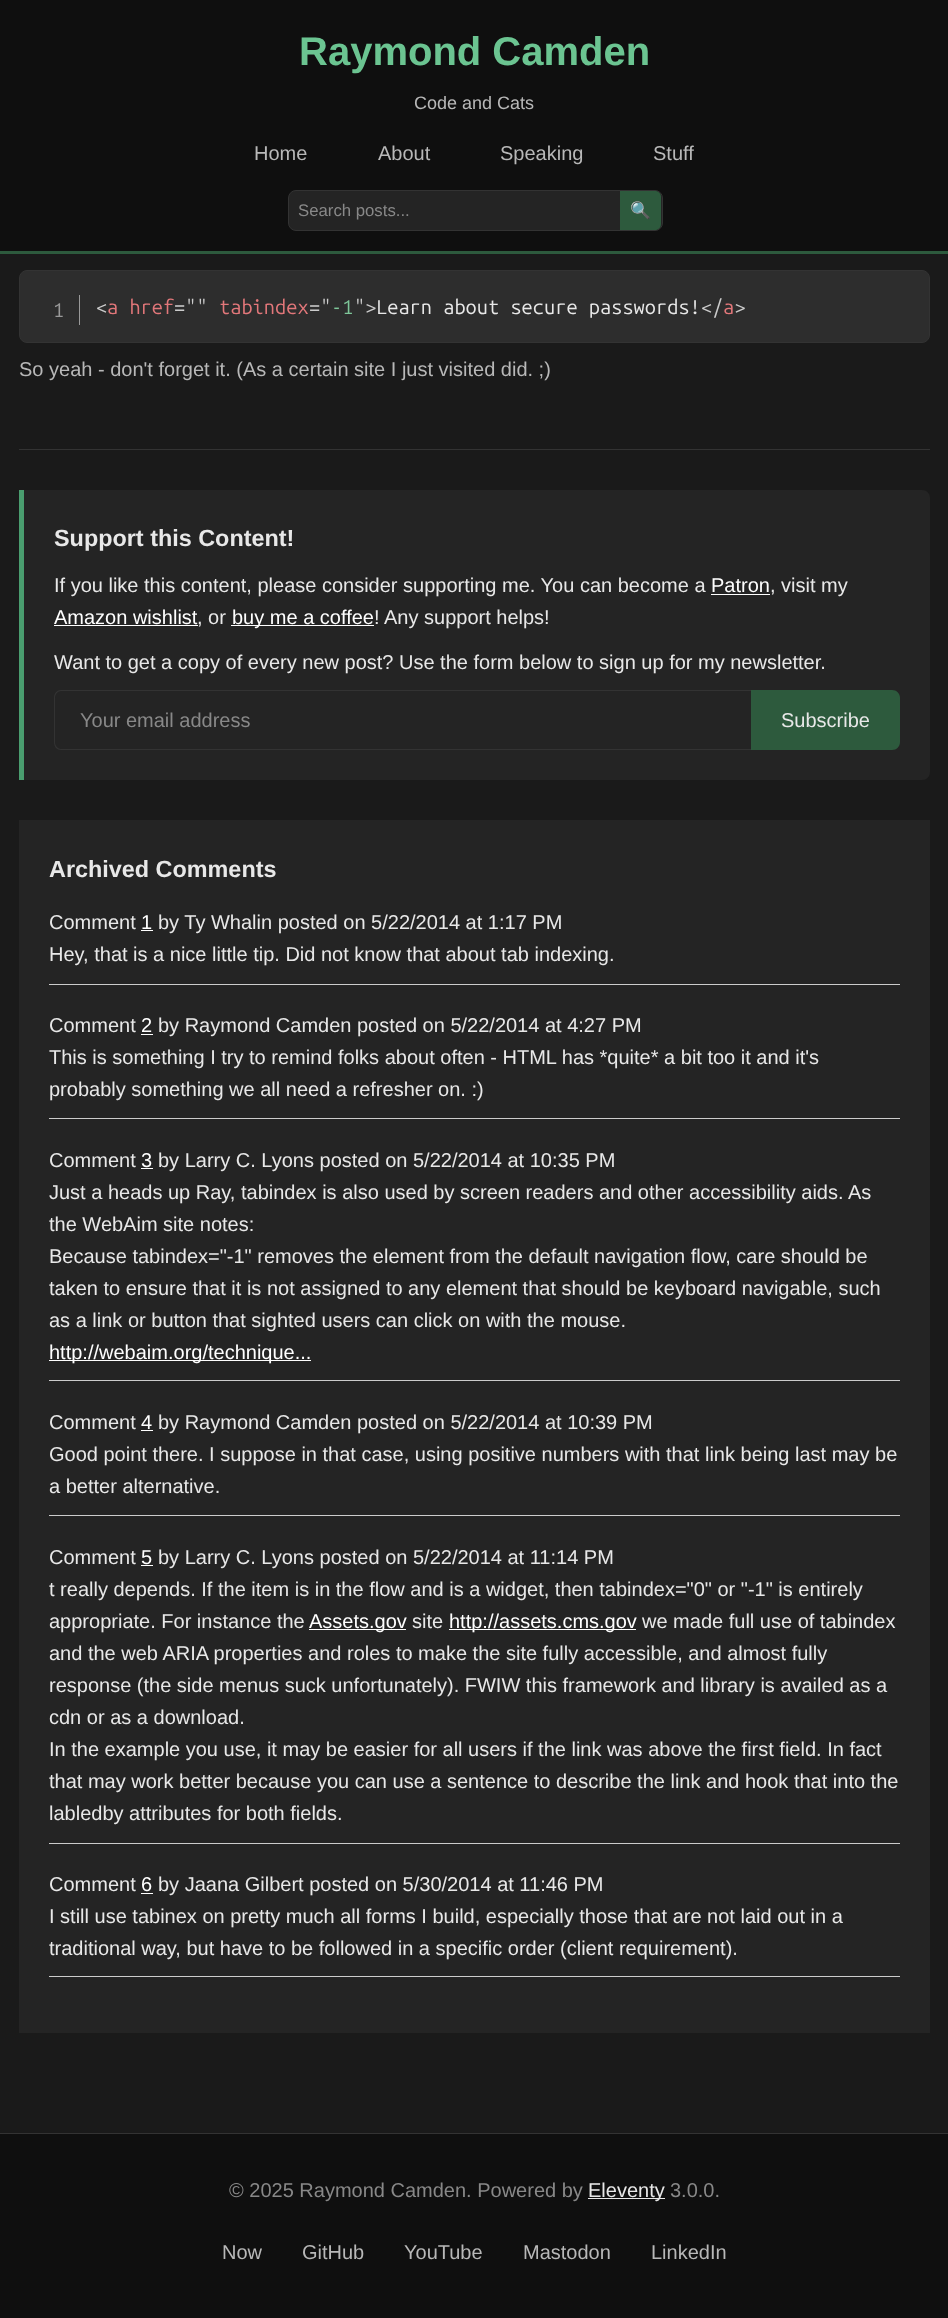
<svg xmlns="http://www.w3.org/2000/svg" width="948" height="2318" viewBox="0 0 948 2318">
  <rect width="100%" height="100%" fill="rgb(26,26,26)"/>
  <rect x="0" y="0" width="948" height="251" fill="rgb(15,15,15)"/>
  <rect x="0" y="251" width="948" height="3" fill="rgb(45,90,61)"/>
  <text x="299" y="65" font-family="Liberation Sans" font-size="40" font-weight="bold" fill="rgb(107,196,145)">Raymond Camden</text>
  <text x="414" y="109" font-family="Liberation Sans" font-size="18" fill="rgb(184,184,184)">Code and Cats</text>
  <g font-family="Liberation Sans" font-size="20" fill="rgb(184,184,184)">
    <text x="254" y="160">Home</text>
    <text x="378" y="160">About</text>
    <text x="500" y="160">Speaking</text>
    <text x="653" y="160">Stuff</text>
  </g>
  <rect x="288.5" y="190.5" width="374" height="40" rx="7.5" fill="rgb(36,36,36)" stroke="rgb(51,51,51)"/>
  <text x="298" y="216" font-family="Liberation Sans" font-size="16.75" fill="rgb(136,136,136)">Search posts...</text>
  <path d="M620 191H655C658.5 191 661 193.5 661 197V224C661 227.5 658.5 230 655 230H620Z" fill="rgb(45,90,61)"/>
  <text x="630" y="216" font-family="Noto Color Emoji" font-size="16.75" fill="rgb(232,232,232)">🔍</text>
  <rect x="19.5" y="270.5" width="910" height="72" rx="7.5" fill="rgb(45,45,45)" stroke="rgb(51,51,51)"/>
  <rect x="79" y="295" width="1" height="30" fill="rgb(153,153,153)"/>
  <text x="53" y="317" font-family="Ubuntu Mono" font-size="20" letter-spacing="-1" fill="rgb(153,153,153)">1</text>
  <text x="107" y="314" font-family="Ubuntu Mono" font-size="20" fill="rgb(226,119,122)">a href</text>
  <text x="174" y="314" font-family="Ubuntu Mono" font-size="20" fill="rgb(204,204,204)">=""</text>
  <text x="219" y="314" font-family="Ubuntu Mono" font-size="20" fill="rgb(226,119,122)">tabindex</text>
  <text x="309" y="314" font-family="Ubuntu Mono" font-size="20" fill="rgb(204,204,204)">="</text>
  <text x="331" y="314" font-family="Ubuntu Mono" font-size="20" fill="rgb(126,198,153)">-1</text>
  <text x="354" y="314" font-family="Ubuntu Mono" font-size="20" fill="rgb(204,204,204)">"&gt;</text>
  <text x="376" y="314" font-family="Ubuntu Mono" font-size="20" fill="rgb(232,232,232)">Learn about secure passwords!</text>
  <g font-family="Ubuntu Mono" font-size="20" fill="rgb(204,204,204)">
    <text x="701" y="314">&lt;/ &gt;</text>
    <text x="96" y="314">&lt;</text>
  </g>
  <text x="723" y="314" font-family="Ubuntu Mono" font-size="20" fill="rgb(226,119,122)">a</text>
  <text x="19" y="376" font-family="Liberation Sans" font-size="20" fill="rgb(184,184,184)">So yeah - don't forget it. (As a certain site I just visited did. ;)</text>
  <rect x="19" y="449" width="911" height="1" fill="rgb(51,51,51)"/>
  <path d="M19 490H922C926.5 490 930 493.5 930 498V772C930 776.5 926.5 780 922 780H19Z" fill="rgb(36,36,36)"/>
  <rect x="19" y="490" width="5" height="290" fill="rgb(74,157,111)"/>
  <text x="54" y="546" font-family="Liberation Sans" font-size="23.4" font-weight="bold" fill="rgb(232,232,232)">Support this Content!</text>
  <text x="54" y="592" font-family="Liberation Sans" font-size="20" fill="rgb(232,232,232)">If you like this content, please consider supporting me. You can become a</text>
  <text x="711" y="592" font-family="Liberation Sans" font-size="20" fill="rgb(255,255,255)">Patron</text>
  <rect x="711" y="594" width="59" height="1" fill="rgb(255,255,255)"/>
  <text x="770" y="592" font-family="Liberation Sans" font-size="20" fill="rgb(232,232,232)">, visit my</text>
  <text x="54" y="624" font-family="Liberation Sans" font-size="20" fill="rgb(255,255,255)">Amazon wishlist</text>
  <rect x="54" y="625" width="144" height="1" fill="rgb(255,255,255)"/>
  <text x="197" y="624" font-family="Liberation Sans" font-size="20" fill="rgb(232,232,232)">, or</text>
  <rect x="231" y="625" width="143" height="1" fill="rgb(255,255,255)"/>
  <text x="232" y="624" font-family="Liberation Sans" font-size="20" fill="rgb(255,255,255)">buy me a coffee</text>
  <g font-family="Liberation Sans" font-size="20" fill="rgb(232,232,232)">
    <text x="374" y="624">! Any support helps!</text>
    <text x="54" y="669">Want to get a copy of every new post? Use the form below to sign up for my newsletter.</text>
  </g>
  <path d="M61 690H751V750H61C57 750 54 747 54 742V698C54 693 57 690 61 690ZM61 691H751V749H61C58 749 55 746 55 742V698C55 694 58 691 61 691Z" fill="rgb(51,51,51)" fill-rule="evenodd"/>
  <text x="80" y="727" font-family="Liberation Sans" font-size="20" fill="rgb(136,136,136)">Your email address</text>
  <path d="M751 690H892C896.5 690 900 693.5 900 698V742C900 746.5 896.5 750 892 750H751Z" fill="rgb(45,90,61)"/>
  <text x="781" y="727" font-family="Liberation Sans" font-size="20" fill="rgb(232,232,232)">Subscribe</text>
  <rect x="19" y="820" width="911" height="1213" fill="rgb(36,36,36)"/>
  <text x="49" y="877" font-family="Liberation Sans" font-size="23.4" font-weight="bold" fill="rgb(232,232,232)">Archived Comments</text>
  <text x="49" y="929" font-family="Liberation Sans" font-size="20" fill="rgb(232,232,232)">Comment</text>
  <text x="141" y="929" font-family="Liberation Sans" font-size="20" fill="rgb(255,255,255)">1</text>
  <rect x="141" y="930" width="12" height="1" fill="rgb(255,255,255)"/>
  <g font-family="Liberation Sans" font-size="20" fill="rgb(232,232,232)">
    <text x="158" y="929">by Ty Whalin posted on 5/22/2014 at 1:17 PM</text>
    <text x="49" y="961">Hey, that is a nice little tip. Did not know that about tab indexing.</text>
  </g>
  <rect x="49" y="984" width="851" height="1" fill="rgb(204,204,204)"/>
  <text x="49" y="1032" font-family="Liberation Sans" font-size="20" fill="rgb(232,232,232)">Comment</text>
  <text x="141" y="1032" font-family="Liberation Sans" font-size="20" fill="rgb(255,255,255)">2</text>
  <rect x="141" y="1034" width="12" height="1" fill="rgb(255,255,255)"/>
  <g font-family="Liberation Sans" font-size="20" fill="rgb(232,232,232)">
    <text x="158" y="1032">by Raymond Camden posted on 5/22/2014 at 4:27 PM</text>
    <text>
      <tspan x="49" y="1064">This is something I try to remind folks about often - HTML has *quite* a bit too it and it's</tspan>
      <tspan x="49" y="1096">probably something we all need a refresher on. :)</tspan>
    </text>
  </g>
  <rect x="49" y="1118" width="851" height="1" fill="rgb(204,204,204)"/>
  <text x="49" y="1167" font-family="Liberation Sans" font-size="20" fill="rgb(232,232,232)">Comment</text>
  <text x="141" y="1167" font-family="Liberation Sans" font-size="20" fill="rgb(255,255,255)">3</text>
  <rect x="141" y="1168" width="12" height="1" fill="rgb(255,255,255)"/>
  <g font-family="Liberation Sans" font-size="20" fill="rgb(232,232,232)">
    <text x="158" y="1167">by Larry C. Lyons posted on 5/22/2014 at 10:35 PM</text>
    <text>
      <tspan x="49" y="1199">Just a heads up Ray, tabindex is also used by screen readers and other accessibility aids. As</tspan>
      <tspan x="49" y="1231">the WebAim site notes:</tspan>
      <tspan x="49" y="1263">Because tabindex="-1" removes the element from the default navigation flow, care should be</tspan>
      <tspan x="49" y="1295">taken to ensure that it is not assigned to any element that should be keyboard navigable, such</tspan>
      <tspan x="49" y="1327">as a link or button that sighted users can click on with the mouse.</tspan>
    </text>
  </g>
  <rect x="49" y="1360" width="262" height="1" fill="rgb(255,255,255)"/>
  <text x="49" y="1359" font-family="Liberation Sans" font-size="20" fill="rgb(255,255,255)">http://webaim.org/technique...</text>
  <rect x="49" y="1380" width="851" height="1" fill="rgb(204,204,204)"/>
  <text x="49" y="1429" font-family="Liberation Sans" font-size="20" fill="rgb(232,232,232)">Comment</text>
  <text x="141" y="1429" font-family="Liberation Sans" font-size="20" fill="rgb(255,255,255)">4</text>
  <rect x="141" y="1430" width="12" height="1" fill="rgb(255,255,255)"/>
  <g font-family="Liberation Sans" font-size="20" fill="rgb(232,232,232)">
    <text x="158" y="1429">by Raymond Camden posted on 5/22/2014 at 10:39 PM</text>
    <text>
      <tspan x="49" y="1461">Good point there. I suppose in that case, using positive numbers with that link being last may be</tspan>
      <tspan x="49" y="1493">a better alternative.</tspan>
    </text>
  </g>
  <rect x="49" y="1515" width="851" height="1" fill="rgb(204,204,204)"/>
  <text x="49" y="1564" font-family="Liberation Sans" font-size="20" fill="rgb(232,232,232)">Comment</text>
  <text x="141" y="1564" font-family="Liberation Sans" font-size="20" fill="rgb(255,255,255)">5</text>
  <rect x="141" y="1565" width="12" height="1" fill="rgb(255,255,255)"/>
  <g font-family="Liberation Sans" font-size="20" fill="rgb(232,232,232)">
    <text x="158" y="1564">by Larry C. Lyons posted on 5/22/2014 at 11:14 PM</text>
    <text>
      <tspan x="49" y="1596">t really depends. If the item is in the flow and is a widget, then tabindex="0" or "-1" is entirely</tspan>
      <tspan x="49" y="1628">appropriate. For instance the</tspan>
    </text>
  </g>
  <rect x="309" y="1629" width="97" height="1" fill="rgb(255,255,255)"/>
  <text x="309" y="1628" font-family="Liberation Sans" font-size="20" fill="rgb(255,255,255)">Assets.gov</text>
  <text x="412" y="1628" font-family="Liberation Sans" font-size="20" fill="rgb(232,232,232)">site</text>
  <rect x="449" y="1629" width="187" height="1" fill="rgb(255,255,255)"/>
  <text x="449" y="1628" font-family="Liberation Sans" font-size="20" fill="rgb(255,255,255)">http://assets.cms.gov</text>
  <g font-family="Liberation Sans" font-size="20" fill="rgb(232,232,232)">
    <text x="642" y="1628">we made full use of tabindex</text>
    <text>
      <tspan x="49" y="1660">and the web ARIA properties and roles to make the site fully accessible, and almost fully</tspan>
      <tspan x="49" y="1692">response (the side menus suck unfortunately). FWIW this framework and library is availed as a</tspan>
      <tspan x="49" y="1724">cdn or as a download.</tspan>
      <tspan x="49" y="1756">In the example you use, it may be easier for all users if the link was above the first field. In fact</tspan>
      <tspan x="49" y="1788">that may work better because you can use a sentence to describe the link and hook that into the</tspan>
      <tspan x="49" y="1820">labledby attributes for both fields.</tspan>
    </text>
  </g>
  <rect x="49" y="1843" width="851" height="1" fill="rgb(204,204,204)"/>
  <text x="49" y="1891" font-family="Liberation Sans" font-size="20" fill="rgb(232,232,232)">Comment</text>
  <text x="141" y="1891" font-family="Liberation Sans" font-size="20" fill="rgb(255,255,255)">6</text>
  <rect x="141" y="1893" width="12" height="1" fill="rgb(255,255,255)"/>
  <g font-family="Liberation Sans" font-size="20" fill="rgb(232,232,232)">
    <text x="158" y="1891">by Jaana Gilbert posted on 5/30/2014 at 11:46 PM</text>
    <text>
      <tspan x="49" y="1923">I still use tabinex on pretty much all forms I build, especially those that are not laid out in a</tspan>
      <tspan x="49" y="1955">traditional way, but have to be followed in a specific order (client requirement).</tspan>
    </text>
  </g>
  <rect x="49" y="1976" width="851" height="1" fill="rgb(204,204,204)"/>
  <rect x="0" y="2134" width="948" height="184" fill="rgb(15,15,15)"/>
  <rect x="0" y="2133" width="948" height="1" fill="rgb(51,51,51)"/>
  <text x="229" y="2197" font-family="Liberation Sans" font-size="20" fill="rgb(136,136,136)">© 2025 Raymond Camden. Powered by</text>
  <rect x="588" y="2198" width="77" height="1" fill="rgb(232,232,232)"/>
  <text x="588" y="2197" font-family="Liberation Sans" font-size="20" fill="rgb(232,232,232)">Eleventy</text>
  <text x="670" y="2197" font-family="Liberation Sans" font-size="20" fill="rgb(136,136,136)">3.0.0.</text>
  <g font-family="Liberation Sans" font-size="20" fill="rgb(184,184,184)">
    <text x="222" y="2259">Now</text>
    <text x="302" y="2259">GitHub</text>
    <text x="404" y="2259">YouTube</text>
    <text x="523" y="2259">Mastodon</text>
    <text x="651" y="2259">LinkedIn</text>
  </g>
</svg>
